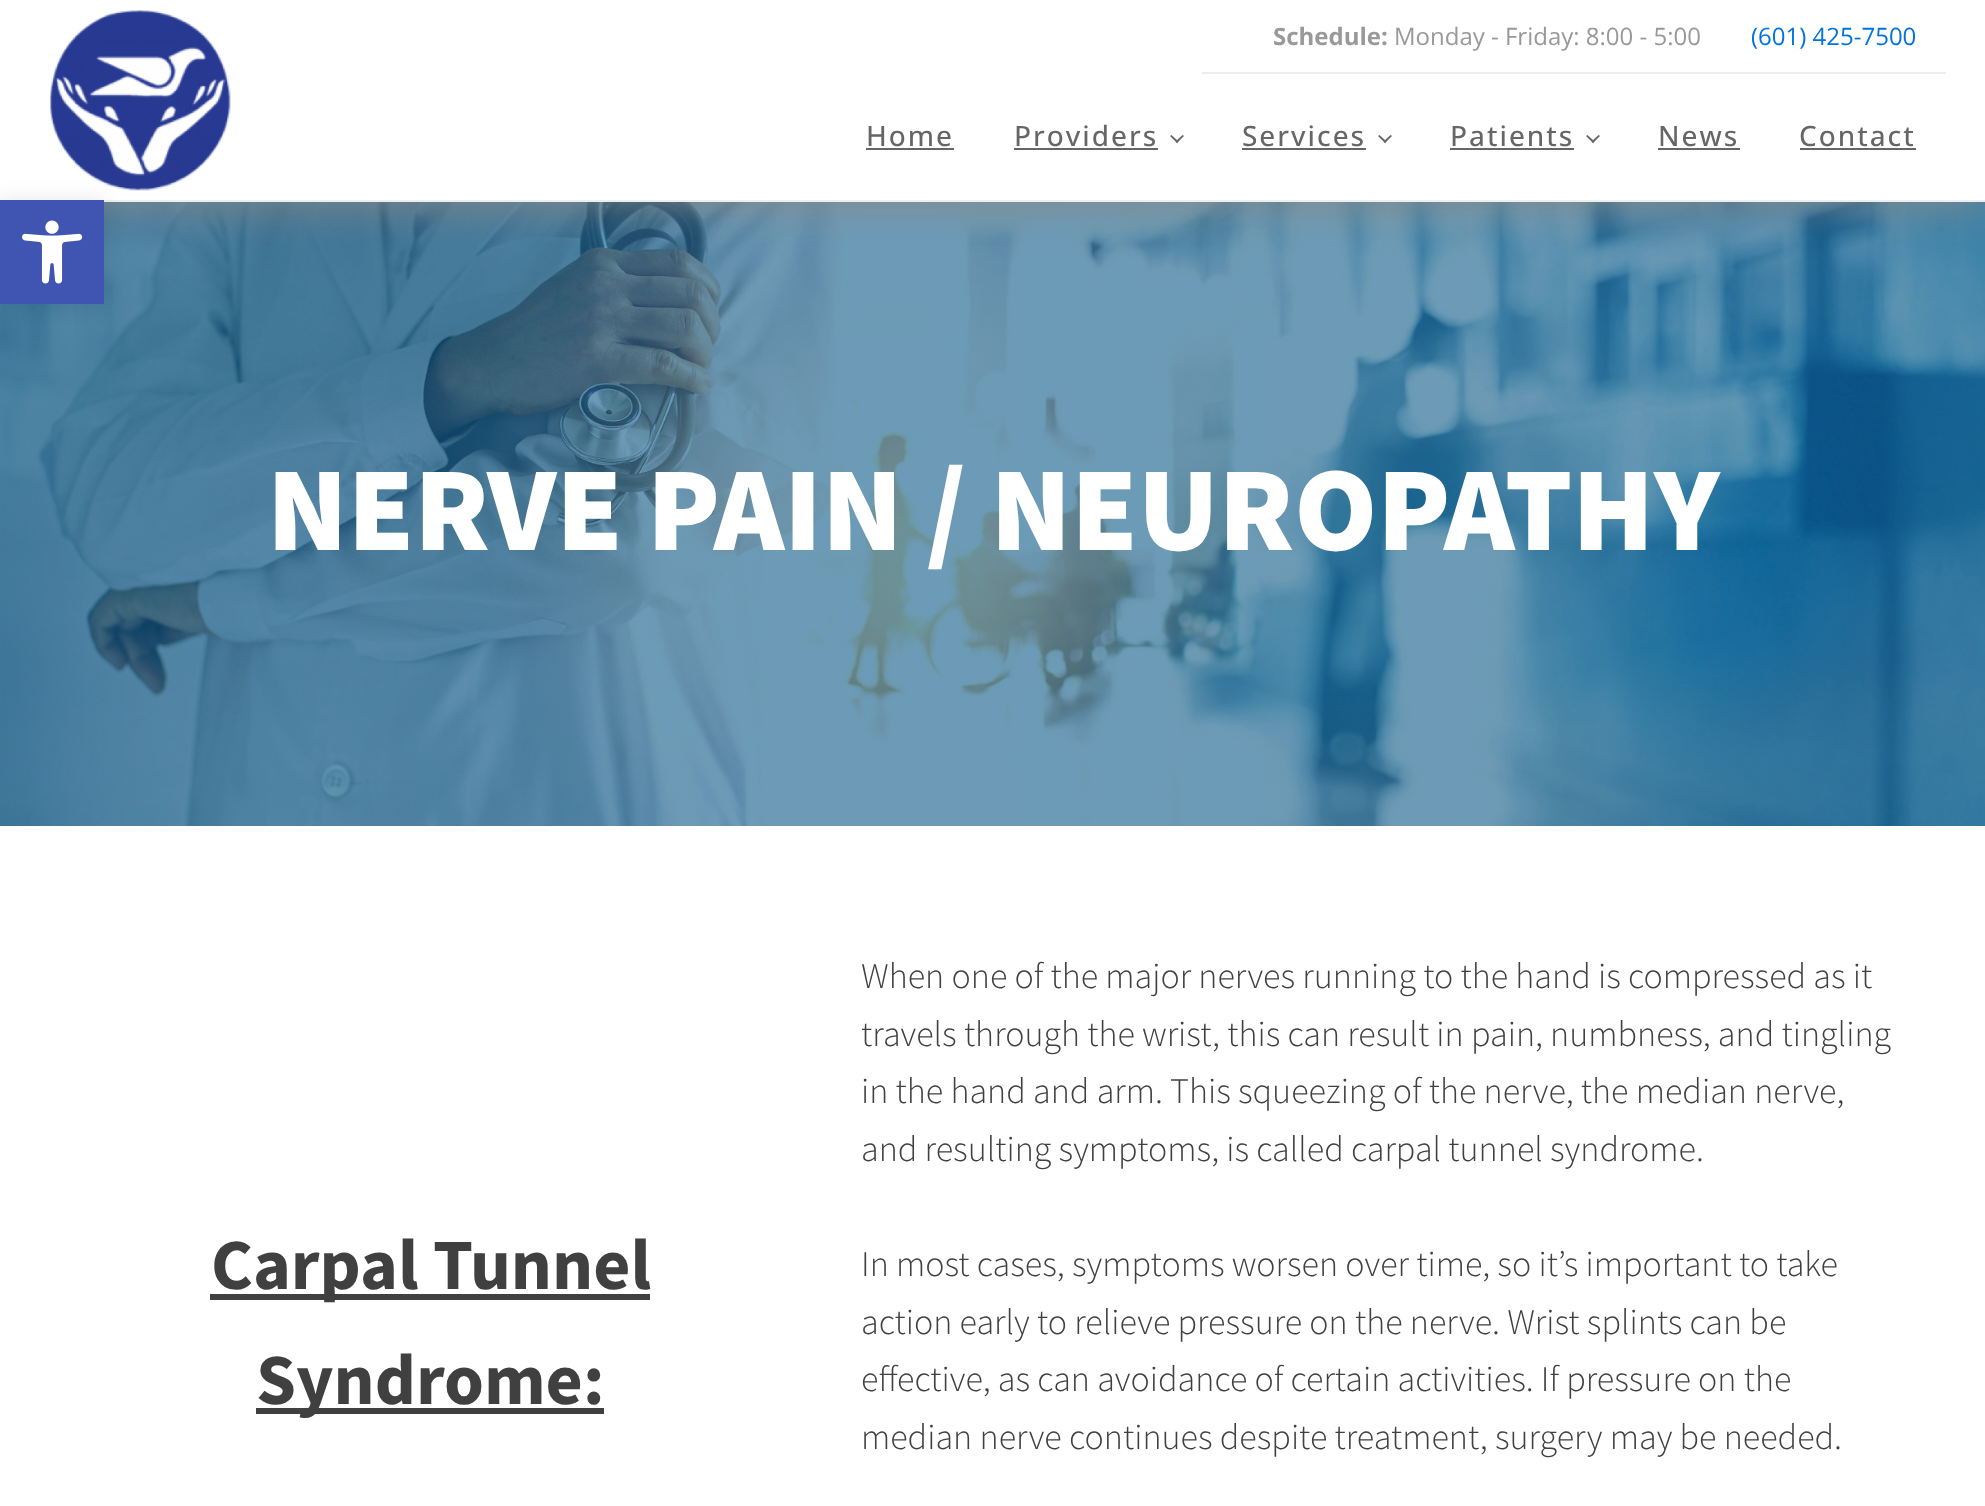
<svg xmlns="http://www.w3.org/2000/svg" width="1985" height="1506" viewBox="0 0 1985 1506">
  <defs>
    <clipPath id="clip1"><rect x="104" y="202" width="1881" height="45"/></clipPath>
  </defs>
  <rect width="100%" height="100%" fill="rgb(255,255,255)"/>
  <image x="0" y="202" width="1985" height="624" href="pic3.png"/>
  <g clip-path="url(#clip1)">
    <rect x="0" y="0" width="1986" height="202" fill="rgb(137,137,137)" filter="blur(22px)"/>
  </g>
  <rect x="104" y="200" width="1881" height="2" fill="rgb(238,238,238)"/>
  <image x="50" y="10" width="181" height="181" href="pic1.png"/>
  <rect x="1202" y="72" width="744" height="2" fill="rgb(238,238,238)"/>
  <text x="1273" y="45" font-family="Open Sans" font-size="24" font-weight="bold" fill="rgb(153,153,153)">Schedule:</text>
  <text x="1394" y="45" font-family="Open Sans" font-size="24" fill="rgb(153,153,153)">Monday - Friday: 8:00 - 5:00</text>
  <text x="1751" y="45" font-family="Open Sans" font-size="24" fill="rgb(0,116,219)">(601) 425-7500</text>
  <text x="866" y="146" font-family="Open Sans" font-size="28" font-weight="500" letter-spacing="2" fill="rgb(102,102,102)">Home</text>
  <rect x="866" y="148" width="88" height="2" fill="rgb(102,102,102)"/>
  <text x="1014" y="146" font-family="Open Sans" font-size="28" font-weight="500" letter-spacing="2" fill="rgb(102,102,102)">Providers</text>
  <rect x="1014" y="148" width="144" height="2" fill="rgb(102,102,102)"/>
  <path d="M1184 136L1177 143L1175.5 141.5L1182.5 135Z" fill="rgb(102,102,102)"/>
  <path d="M1178.5 141.5L1177 143L1170 136L1171.5 135Z" fill="rgb(102,102,102)"/>
  <text x="1242" y="146" font-family="Open Sans" font-size="28" font-weight="500" letter-spacing="2" fill="rgb(102,102,102)">Services</text>
  <rect x="1242" y="148" width="124" height="2" fill="rgb(102,102,102)"/>
  <path d="M1392 136L1385 143L1383.5 141.5L1390.5 135Z" fill="rgb(102,102,102)"/>
  <path d="M1386.5 141.5L1385 143L1378 136L1379.5 135Z" fill="rgb(102,102,102)"/>
  <text x="1450" y="146" font-family="Open Sans" font-size="28" font-weight="500" letter-spacing="2" fill="rgb(102,102,102)">Patients</text>
  <rect x="1450" y="148" width="124" height="2" fill="rgb(102,102,102)"/>
  <path d="M1600 136L1593 143L1591.5 141.5L1598.5 135Z" fill="rgb(102,102,102)"/>
  <path d="M1594.5 141.5L1593 143L1586 136L1587.5 135Z" fill="rgb(102,102,102)"/>
  <text x="1658" y="146" font-family="Open Sans" font-size="28" font-weight="500" letter-spacing="2" fill="rgb(102,102,102)">News</text>
  <rect x="1658" y="148" width="82" height="2" fill="rgb(102,102,102)"/>
  <text x="1799" y="146" font-family="Open Sans" font-size="28" font-weight="500" letter-spacing="2" fill="rgb(102,102,102)">Contact</text>
  <rect x="1800" y="148" width="116" height="2" fill="rgb(102,102,102)"/>
  <rect x="0" y="200" width="104" height="104" fill="rgba(0,0,0,0.1)" filter="blur(10px)"/>
  <rect x="0" y="200" width="104" height="104" fill="rgb(64,84,178)"/>
  <image x="22" y="220" width="61" height="64" href="pic2.png"/>
  <text x="267" y="550" font-family="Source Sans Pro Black" font-size="120" font-weight="900" fill="rgb(255,255,255)">NERVE PAIN / NEUROPATHY</text>
  <rect x="210" y="1294" width="440" height="6" fill="rgb(64,64,64)"/>
  <text x="211" y="1289" font-family="Source Sans Pro" font-size="72" font-weight="bold" fill="rgb(64,64,64)">Carpal Tunnel</text>
  <rect x="256" y="1408" width="348" height="6" fill="rgb(64,64,64)"/>
  <text x="256" y="1404" font-family="Source Sans Pro" font-size="72" font-weight="bold" fill="rgb(64,64,64)">Syndrome:</text>
  <g font-family="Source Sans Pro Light" font-size="36" font-weight="300" fill="rgb(64,64,64)">
    <text>
      <tspan x="861" y="988">When one of the major nerves running to the hand is compressed as it</tspan>
      <tspan x="861" y="1046">travels through the wrist, this can result in pain, numbness, and tingling</tspan>
      <tspan x="861" y="1103">in the hand and arm. This squeezing of the nerve, the median nerve,</tspan>
      <tspan x="861" y="1161">and resulting symptoms, is called carpal tunnel syndrome.</tspan>
    </text>
    <text>
      <tspan x="861" y="1276">In most cases, symptoms worsen over time, so it’s important to take</tspan>
      <tspan x="861" y="1334">action early to relieve pressure on the nerve. Wrist splints can be</tspan>
      <tspan x="861" y="1391">effective, as can avoidance of certain activities. If pressure on the</tspan>
      <tspan x="861" y="1449">median nerve continues despite treatment, surgery may be needed.</tspan>
    </text>
  </g>
</svg>
